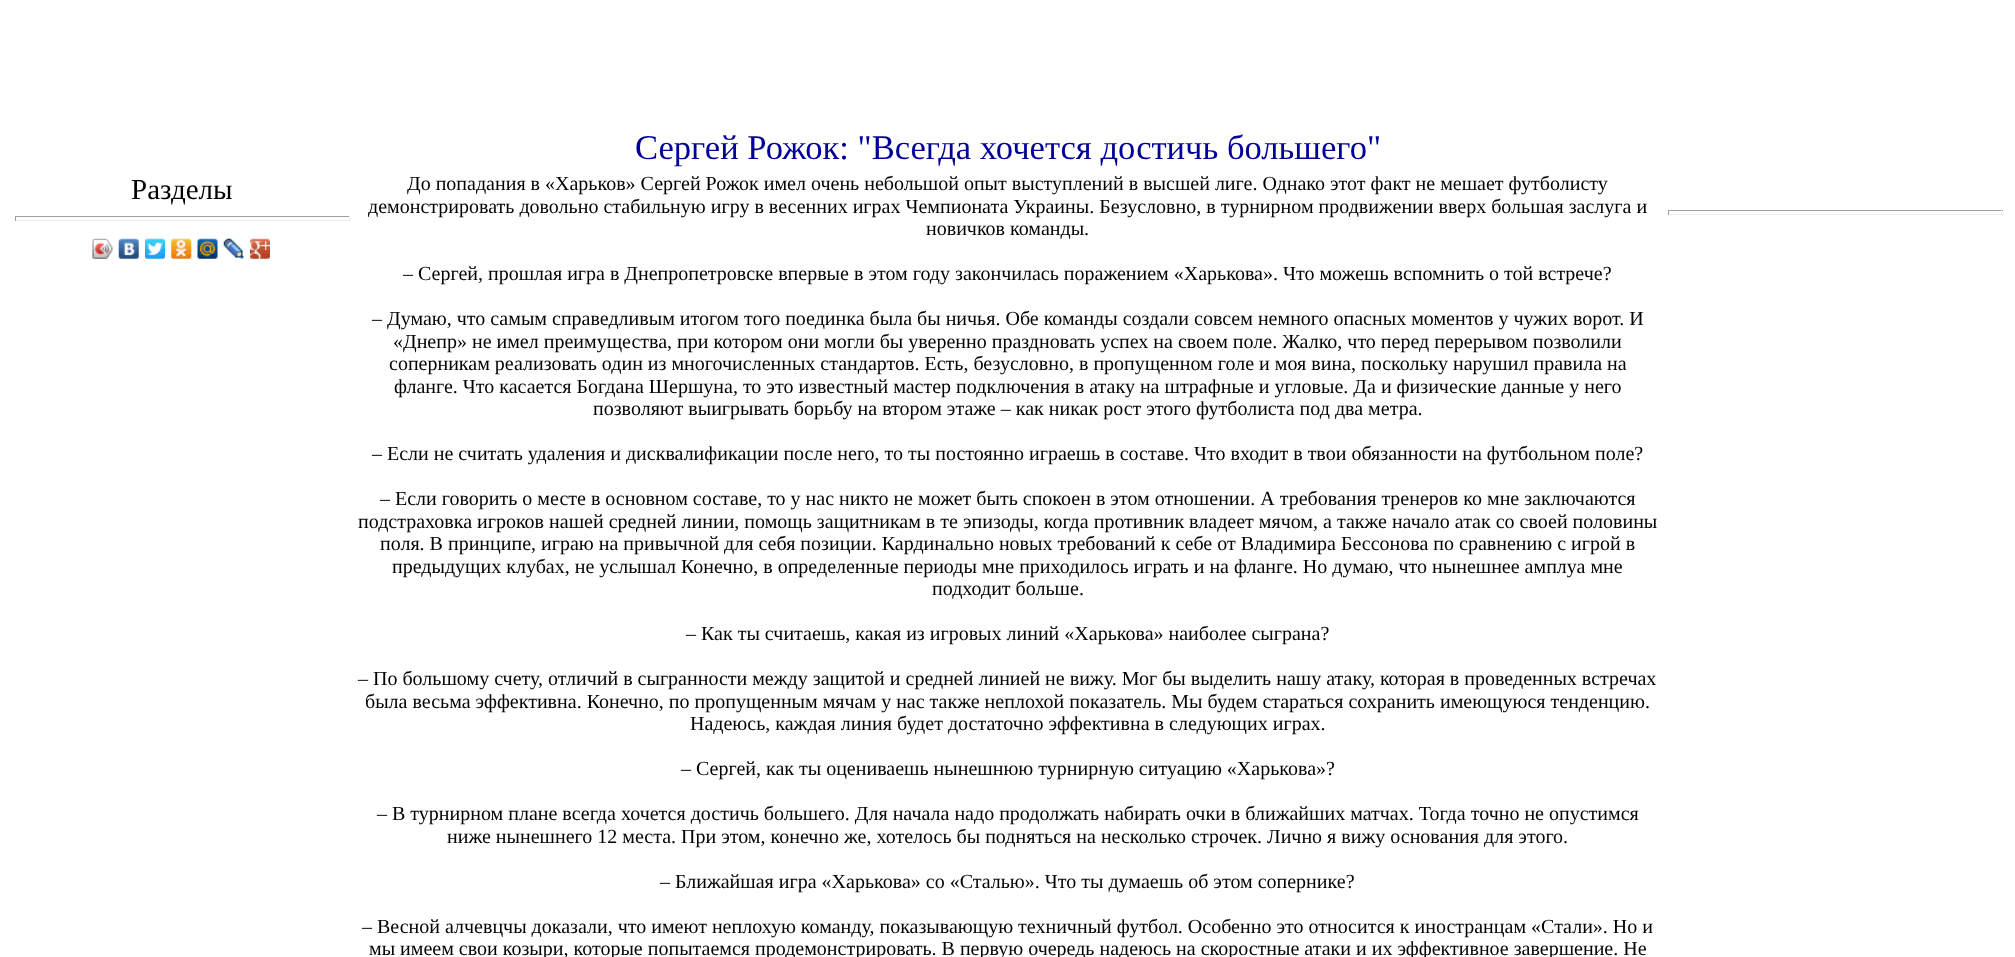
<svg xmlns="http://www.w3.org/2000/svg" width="2015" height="957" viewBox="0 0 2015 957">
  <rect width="100%" height="100%" fill="rgb(255,255,255)"/>
  <text x="635" y="159" font-family="Liberation Serif" font-size="34.6" fill="rgb(0,0,153)">Сергей Рожок: "Всегда хочется достичь большего"</text>
  <text x="131" y="199" font-family="Liberation Serif" font-size="29" fill="rgb(0,0,0)">Разделы</text>
  <rect x="15" y="216" width="335" height="1" fill="rgb(159,159,159)"/>
  <rect x="349" y="216" width="1" height="5" fill="rgb(238,238,238)"/>
  <rect x="15" y="220" width="335" height="1" fill="rgb(238,238,238)"/>
  <rect x="15" y="216" width="1" height="5" fill="rgb(159,159,159)"/>
  <image x="92" y="238" width="21" height="21" href="pic1.png"/>
  <image x="92" y="238" width="21" height="21" href="pic2.png"/>
  <image x="118" y="238" width="21" height="21" href="pic3.png"/>
  <image x="145" y="238" width="20" height="21" href="pic4.png"/>
  <image x="171" y="238" width="21" height="21" href="pic5.png"/>
  <image x="197" y="238" width="21" height="21" href="pic6.png"/>
  <image x="223" y="238" width="21" height="21" href="pic7.png"/>
  <image x="250" y="238" width="20" height="21" href="pic8.png"/>
  <g font-family="Liberation Serif" font-size="20" fill="rgb(0,0,0)">
    <text x="407" y="190">До попадания в «Харьков» Сергей Рожок имел очень небольшой опыт выступлений в высшей лиге. Однако этот факт не мешает футболисту</text>
    <text x="368" y="213">демонстрировать довольно стабильную игру в весенних играх Чемпионата Украины. Безусловно, в турнирном продвижении вверх большая заслуга и</text>
    <text x="926" y="235">новичков команды.</text>
    <text x="403" y="280">– Сергей, прошлая игра в Днепропетровске впервые в этом году закончилась поражением «Харькова». Что можешь вспомнить о той встрече?</text>
    <text x="372" y="325">– Думаю, что самым справедливым итогом того поединка была бы ничья. Обе команды создали совсем немного опасных моментов у чужих ворот. И</text>
    <text x="393" y="348">«Днепр» не имел преимущества, при котором они могли бы уверенно праздновать успех на своем поле. Жалко, что перед перерывом позволили</text>
    <text x="389" y="370">соперникам реализовать один из многочисленных стандартов. Есть, безусловно, в пропущенном голе и моя вина, поскольку нарушил правила на</text>
    <text x="394" y="393">фланге. Что касается Богдана Шершуна, то это известный мастер подключения в атаку на штрафные и угловые. Да и физические данные у него</text>
    <text x="593" y="415">позволяют выигрывать борьбу на втором этаже – как никак рост этого футболиста под два метра.</text>
    <text x="372" y="460">– Если не считать удаления и дисквалификации после него, то ты постоянно играешь в составе. Что входит в твои обязанности на футбольном поле?</text>
    <text x="380" y="505">– Если говорить о месте в основном составе, то у нас никто не может быть спокоен в этом отношении. А требования тренеров ко мне заключаются</text>
    <text x="358" y="528">подстраховка игроков нашей средней линии, помощь защитникам в те эпизоды, когда противник владеет мячом, а также начало атак со своей половины</text>
    <text x="380" y="550">поля. В принципе, играю на привычной для себя позиции. Кардинально новых требований к себе от Владимира Бессонова по сравнению с игрой в</text>
    <text x="392" y="573">предыдущих клубах, не услышал Конечно, в определенные периоды мне приходилось играть и на фланге. Но думаю, что нынешнее амплуа мне</text>
    <text x="932" y="595">подходит больше.</text>
    <text x="686" y="640">– Как ты считаешь, какая из игровых линий «Харькова» наиболее сыграна?</text>
    <text x="358" y="685">– По большому счету, отличий в сыгранности между защитой и средней линией не вижу. Мог бы выделить нашу атаку, которая в проведенных встречах</text>
    <text x="365" y="708">была весьма эффективна. Конечно, по пропущенным мячам у нас также неплохой показатель. Мы будем стараться сохранить имеющуюся тенденцию.</text>
    <text x="690" y="730">Надеюсь, каждая линия будет достаточно эффективна в следующих играх.</text>
    <text x="681" y="775">– Сергей, как ты оцениваешь нынешнюю турнирную ситуацию «Харькова»?</text>
    <text x="377" y="820">– В турнирном плане всегда хочется достичь большего. Для начала надо продолжать набирать очки в ближайших матчах. Тогда точно не опустимся</text>
    <text x="447" y="843">ниже нынешнего 12 места. При этом, конечно же, хотелось бы подняться на несколько строчек. Лично я вижу основания для этого.</text>
    <text x="660" y="888">– Ближайшая игра «Харькова» со «Сталью». Что ты думаешь об этом сопернике?</text>
    <text x="362" y="933">– Весной алчевцчы доказали, что имеют неплохую команду, показывающую техничный футбол. Особенно это относится к иностранцам «Стали». Но и</text>
    <text x="369" y="955">мы имеем свои козыри, которые попытаемся продемонстрировать. В первую очередь надеюсь на скоростные атаки и их эффективное завершение. Не</text>
  </g>
  <rect x="1668" y="210" width="335" height="1" fill="rgb(159,159,159)"/>
  <rect x="2001" y="210" width="1" height="5" fill="rgb(238,238,238)"/>
  <rect x="1668" y="214" width="335" height="1" fill="rgb(238,238,238)"/>
  <rect x="1668" y="210" width="1" height="5" fill="rgb(159,159,159)"/>
</svg>
